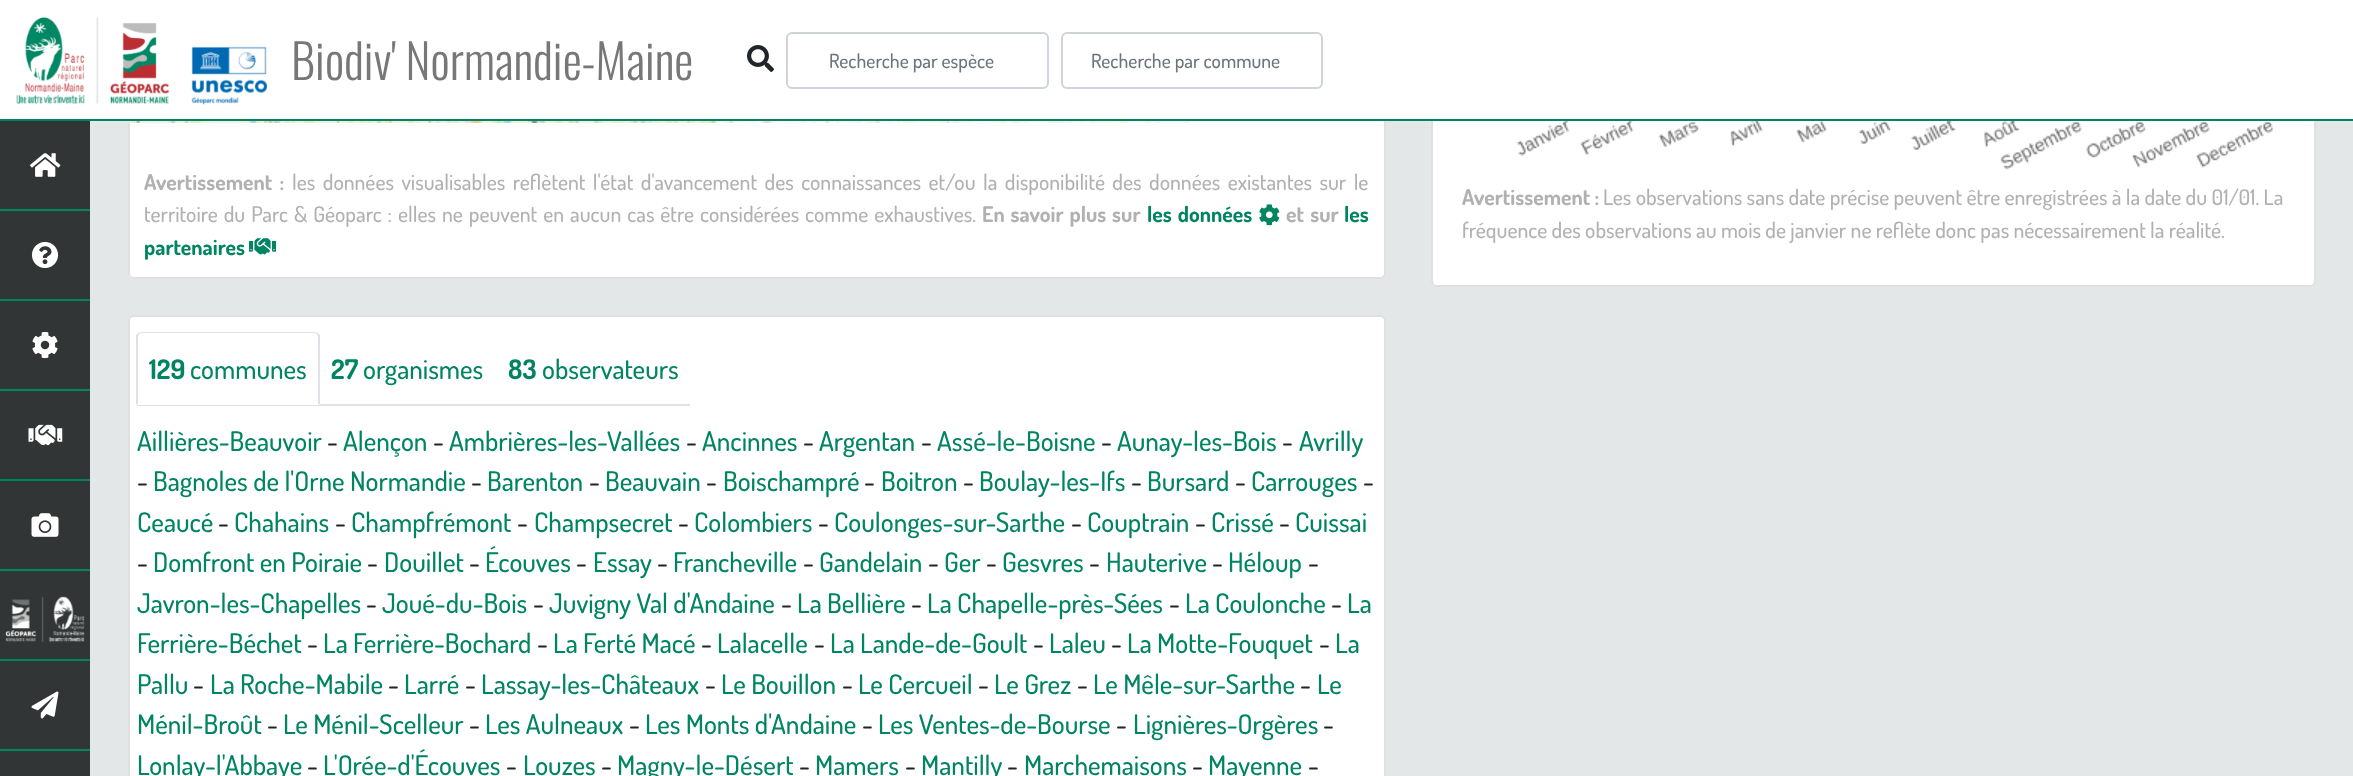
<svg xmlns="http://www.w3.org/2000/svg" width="2353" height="776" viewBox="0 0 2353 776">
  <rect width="100%" height="100%" fill="rgb(227,231,232)"/>
  <rect x="128" y="-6" width="1258" height="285" rx="6" fill="rgb(255,255,255)"/>
  <rect x="129" y="-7" width="1256" height="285" rx="5" fill="none" stroke="rgba(0,0,0,0.12)" stroke-width="2"/>
  <rect x="1431" y="-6" width="885" height="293" rx="6" fill="rgb(255,255,255)"/>
  <rect x="1432" y="-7" width="883" height="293" rx="5" fill="none" stroke="rgba(0,0,0,0.12)" stroke-width="2"/>
  <rect x="0" y="0" width="2353" height="119" fill="rgb(255,255,255)"/>
  <rect x="0" y="119" width="2353" height="2" fill="rgb(0,132,97)"/>
  <image x="16" y="17" width="251" height="88" href="pic1.png"/>
  <text x="291" y="80" font-family="Oswald" font-size="48" font-weight="300" fill="rgb(119,119,119)">Biodiv' Normandie-Maine</text>
  <image x="747" y="45" width="27" height="27" href="pic2.png"/>
  <rect x="787" y="33" width="261" height="55" rx="5" fill="none" stroke="rgb(206,212,218)" stroke-width="2"/>
  <text x="829" y="68" font-family="Dosis" font-size="19.5" font-weight="500" fill="rgb(108,117,125)">Recherche par espèce</text>
  <rect x="1062" y="33" width="260" height="55" rx="5" fill="none" stroke="rgb(206,212,218)" stroke-width="2"/>
  <text x="1091" y="68" font-family="Dosis" font-size="19.5" font-weight="500" fill="rgb(108,117,125)">Recherche par commune</text>
  <rect x="0" y="121" width="90" height="655" fill="rgb(50,53,53)"/>
  <rect x="0" y="209" width="90" height="2" fill="rgb(0,132,97)"/>
  <image x="30" y="153" width="31" height="24" href="pic3.png"/>
  <rect x="0" y="299" width="90" height="2" fill="rgb(0,132,97)"/>
  <image x="31" y="241" width="28" height="28" href="pic4.png"/>
  <rect x="0" y="389" width="90" height="2" fill="rgb(0,132,97)"/>
  <image x="32" y="331" width="26" height="28" href="pic5.png"/>
  <rect x="0" y="479" width="90" height="2" fill="rgb(0,132,97)"/>
  <image x="28" y="424" width="35" height="22" href="pic6.png"/>
  <rect x="0" y="569" width="90" height="2" fill="rgb(0,132,97)"/>
  <image x="31" y="513" width="28" height="24" href="pic7.png"/>
  <rect x="0" y="659" width="90" height="2" fill="rgb(0,132,97)"/>
  <image x="5" y="596" width="80" height="46" href="pic8.png"/>
  <rect x="0" y="749" width="90" height="2" fill="rgb(0,132,97)"/>
  <image x="31" y="691" width="28" height="28" href="pic9.png"/>
  <rect x="1156" y="121" width="34" height="2" fill="rgb(221,221,221)"/>
  <image x="129" y="121" width="259" height="2" href="pic10.png"/>
  <image x="388" y="121" width="384" height="2" href="pic11.png"/>
  <image x="772" y="121" width="384" height="2" href="pic12.png"/>
  <rect x="716" y="121" width="474" height="2" fill="rgba(255,255,255,0.7)"/>
  <text x="144" y="190" word-spacing="3.1" font-family="Dosis" font-size="21.6" font-weight="bold" fill="rgb(177,177,177)">Avertissement :</text>
  <g font-family="Dosis" font-size="21.6" font-weight="500" fill="rgb(177,177,177)">
    <text x="292" y="190" word-spacing="3.1">les données visualisables reflètent l'état d'avancement des connaissances et/ou la disponibilité des données existantes sur le</text>
    <text x="144" y="222" word-spacing="1.6">territoire du Parc &amp; Géoparc : elles ne peuvent en aucun cas être considérées comme exhaustives.</text>
  </g>
  <g font-family="Dosis" font-size="21.6" font-weight="bold" fill="rgb(0,132,97)">
    <text x="1344" y="222">les</text>
    <text x="144" y="255">partenaires</text>
  </g>
  <image x="249" y="238" width="27" height="17" href="pic13.png"/>
  <text x="982" y="222" word-spacing="1.5" font-family="Dosis" font-size="21.6" font-weight="bold" fill="rgb(177,177,177)">En savoir plus sur</text>
  <text x="1147" y="222" word-spacing="1.6" font-family="Dosis" font-size="21.6" font-weight="bold" fill="rgb(0,132,97)">les données</text>
  <image x="1259" y="204" width="21" height="22" href="pic14.png"/>
  <text x="1286" y="222" word-spacing="2" font-family="Dosis" font-size="21.6" font-weight="bold" fill="rgb(177,177,177)">et sur</text>
  <rect x="128" y="315" width="1258" height="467" rx="6" fill="rgb(255,255,255)"/>
  <rect x="129" y="316" width="1256" height="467" rx="5" fill="none" stroke="rgba(0,0,0,0.12)" stroke-width="2"/>
  <rect x="137" y="404" width="553" height="2" fill="rgb(222,226,230)"/>
  <path d="M143 332H314C317.5 332 320 334.5 320 338V405H137V338C137 334.5 139.5 332 143 332Z" fill="rgb(255,255,255)"/>
  <path d="M142 332L138 333L139 334L142 333H314L317 334L318 333L314 332Z" fill="rgb(222,226,230)"/>
  <path d="M318 333L320 335V405L318 404V338C318 336 317 335 317 334Z" fill="rgb(222,226,230)"/>
  <path d="M320 405L318 404H138L136 405Z" fill="rgb(255,255,255)"/>
  <path d="M136 405L138 404V338C138 336 139 335 139 334L138 333L136 335Z" fill="rgb(222,226,230)"/>
  <text x="149" y="379" font-family="Dosis" font-size="27" font-weight="bold" fill="rgb(0,132,97)">129</text>
  <text x="190" y="379" font-family="Dosis" font-size="27" font-weight="500" fill="rgb(0,132,97)">communes</text>
  <text x="331" y="379" font-family="Dosis" font-size="27" font-weight="bold" fill="rgb(0,132,97)">27</text>
  <text x="363" y="379" font-family="Dosis" font-size="27" font-weight="500" fill="rgb(0,132,97)">organismes</text>
  <text x="508" y="379" font-family="Dosis" font-size="27" font-weight="bold" fill="rgb(0,132,97)">83</text>
  <g font-family="Dosis" font-size="27" font-weight="500" fill="rgb(0,132,97)">
    <text x="542" y="379">observateurs</text>
    <text x="137" y="451">Aillières-Beauvoir</text>
  </g>
  <text x="327" y="451" font-family="Dosis" font-size="27" font-weight="500" fill="rgb(33,37,41)">-</text>
  <text x="343" y="451" font-family="Dosis" font-size="27" font-weight="500" fill="rgb(0,132,97)">Alençon</text>
  <text x="433" y="451" font-family="Dosis" font-size="27" font-weight="500" fill="rgb(33,37,41)">-</text>
  <text x="449" y="451" font-family="Dosis" font-size="27" font-weight="500" fill="rgb(0,132,97)">Ambrières-les-Vallées</text>
  <text x="686" y="451" font-family="Dosis" font-size="27" font-weight="500" fill="rgb(33,37,41)">-</text>
  <text x="702" y="451" font-family="Dosis" font-size="27" font-weight="500" fill="rgb(0,132,97)">Ancinnes</text>
  <text x="803" y="451" font-family="Dosis" font-size="27" font-weight="500" fill="rgb(33,37,41)">-</text>
  <text x="819" y="451" font-family="Dosis" font-size="27" font-weight="500" fill="rgb(0,132,97)">Argentan</text>
  <text x="921" y="451" font-family="Dosis" font-size="27" font-weight="500" fill="rgb(33,37,41)">-</text>
  <text x="937" y="451" font-family="Dosis" font-size="27" font-weight="500" fill="rgb(0,132,97)">Assé-le-Boisne</text>
  <text x="1101" y="451" font-family="Dosis" font-size="27" font-weight="500" fill="rgb(33,37,41)">-</text>
  <text x="1117" y="451" font-family="Dosis" font-size="27" font-weight="500" fill="rgb(0,132,97)">Aunay-les-Bois</text>
  <text x="1282" y="451" font-family="Dosis" font-size="27" font-weight="500" fill="rgb(33,37,41)">-</text>
  <text x="1299" y="451" font-family="Dosis" font-size="27" font-weight="500" fill="rgb(0,132,97)">Avrilly</text>
  <text x="137" y="491" font-family="Dosis" font-size="27" font-weight="500" fill="rgb(33,37,41)">-</text>
  <text x="153" y="491" font-family="Dosis" font-size="27" font-weight="500" fill="rgb(0,132,97)">Bagnoles de l'Orne Normandie</text>
  <text x="471" y="491" font-family="Dosis" font-size="27" font-weight="500" fill="rgb(33,37,41)">-</text>
  <text x="487" y="491" font-family="Dosis" font-size="27" font-weight="500" fill="rgb(0,132,97)">Barenton</text>
  <text x="589" y="491" font-family="Dosis" font-size="27" font-weight="500" fill="rgb(33,37,41)">-</text>
  <text x="605" y="491" font-family="Dosis" font-size="27" font-weight="500" fill="rgb(0,132,97)">Beauvain</text>
  <text x="706" y="491" font-family="Dosis" font-size="27" font-weight="500" fill="rgb(33,37,41)">-</text>
  <text x="723" y="491" font-family="Dosis" font-size="27" font-weight="500" fill="rgb(0,132,97)">Boischampré</text>
  <text x="864" y="491" font-family="Dosis" font-size="27" font-weight="500" fill="rgb(33,37,41)">-</text>
  <text x="881" y="491" font-family="Dosis" font-size="27" font-weight="500" fill="rgb(0,132,97)">Boitron</text>
  <text x="963" y="491" font-family="Dosis" font-size="27" font-weight="500" fill="rgb(33,37,41)">-</text>
  <text x="979" y="491" font-family="Dosis" font-size="27" font-weight="500" fill="rgb(0,132,97)">Boulay-les-Ifs</text>
  <text x="1131" y="491" font-family="Dosis" font-size="27" font-weight="500" fill="rgb(33,37,41)">-</text>
  <text x="1147" y="491" font-family="Dosis" font-size="27" font-weight="500" fill="rgb(0,132,97)">Bursard</text>
  <text x="1235" y="491" font-family="Dosis" font-size="27" font-weight="500" fill="rgb(33,37,41)">-</text>
  <text x="1251" y="491" font-family="Dosis" font-size="27" font-weight="500" fill="rgb(0,132,97)">Carrouges</text>
  <text x="1363" y="491" font-family="Dosis" font-size="27" font-weight="500" fill="rgb(33,37,41)">-</text>
  <text x="137" y="532" font-family="Dosis" font-size="27" font-weight="500" fill="rgb(0,132,97)">Ceaucé</text>
  <text x="218" y="532" font-family="Dosis" font-size="27" font-weight="500" fill="rgb(33,37,41)">-</text>
  <text x="234" y="532" font-family="Dosis" font-size="27" font-weight="500" fill="rgb(0,132,97)">Chahains</text>
  <text x="335" y="532" font-family="Dosis" font-size="27" font-weight="500" fill="rgb(33,37,41)">-</text>
  <text x="351" y="532" font-family="Dosis" font-size="27" font-weight="500" fill="rgb(0,132,97)">Champfrémont</text>
  <text x="517" y="532" font-family="Dosis" font-size="27" font-weight="500" fill="rgb(33,37,41)">-</text>
  <text x="534" y="532" font-family="Dosis" font-size="27" font-weight="500" fill="rgb(0,132,97)">Champsecret</text>
  <text x="678" y="532" font-family="Dosis" font-size="27" font-weight="500" fill="rgb(33,37,41)">-</text>
  <text x="694" y="532" font-family="Dosis" font-size="27" font-weight="500" fill="rgb(0,132,97)">Colombiers</text>
  <text x="818" y="532" font-family="Dosis" font-size="27" font-weight="500" fill="rgb(33,37,41)">-</text>
  <text x="834" y="532" font-family="Dosis" font-size="27" font-weight="500" fill="rgb(0,132,97)">Coulonges-sur-Sarthe</text>
  <text x="1071" y="532" font-family="Dosis" font-size="27" font-weight="500" fill="rgb(33,37,41)">-</text>
  <text x="1087" y="532" font-family="Dosis" font-size="27" font-weight="500" fill="rgb(0,132,97)">Couptrain</text>
  <text x="1195" y="532" font-family="Dosis" font-size="27" font-weight="500" fill="rgb(33,37,41)">-</text>
  <text x="1211" y="532" font-family="Dosis" font-size="27" font-weight="500" fill="rgb(0,132,97)">Crissé</text>
  <text x="1279" y="532" font-family="Dosis" font-size="27" font-weight="500" fill="rgb(33,37,41)">-</text>
  <text x="1295" y="532" font-family="Dosis" font-size="27" font-weight="500" fill="rgb(0,132,97)">Cuissai</text>
  <text x="137" y="572" font-family="Dosis" font-size="27" font-weight="500" fill="rgb(33,37,41)">-</text>
  <text x="153" y="572" font-family="Dosis" font-size="27" font-weight="500" fill="rgb(0,132,97)">Domfront en Poiraie</text>
  <text x="367" y="572" font-family="Dosis" font-size="27" font-weight="500" fill="rgb(33,37,41)">-</text>
  <text x="384" y="572" font-family="Dosis" font-size="27" font-weight="500" fill="rgb(0,132,97)">Douillet</text>
  <text x="469" y="572" font-family="Dosis" font-size="27" font-weight="500" fill="rgb(33,37,41)">-</text>
  <text x="485" y="572" font-family="Dosis" font-size="27" font-weight="500" fill="rgb(0,132,97)">Écouves</text>
  <text x="576" y="572" font-family="Dosis" font-size="27" font-weight="500" fill="rgb(33,37,41)">-</text>
  <text x="593" y="572" font-family="Dosis" font-size="27" font-weight="500" fill="rgb(0,132,97)">Essay</text>
  <text x="657" y="572" font-family="Dosis" font-size="27" font-weight="500" fill="rgb(33,37,41)">-</text>
  <text x="673" y="572" font-family="Dosis" font-size="27" font-weight="500" fill="rgb(0,132,97)">Francheville</text>
  <text x="803" y="572" font-family="Dosis" font-size="27" font-weight="500" fill="rgb(33,37,41)">-</text>
  <text x="819" y="572" font-family="Dosis" font-size="27" font-weight="500" fill="rgb(0,132,97)">Gandelain</text>
  <text x="928" y="572" font-family="Dosis" font-size="27" font-weight="500" fill="rgb(33,37,41)">-</text>
  <text x="944" y="572" font-family="Dosis" font-size="27" font-weight="500" fill="rgb(0,132,97)">Ger</text>
  <text x="986" y="572" font-family="Dosis" font-size="27" font-weight="500" fill="rgb(33,37,41)">-</text>
  <text x="1002" y="572" font-family="Dosis" font-size="27" font-weight="500" fill="rgb(0,132,97)">Gesvres</text>
  <text x="1089" y="572" font-family="Dosis" font-size="27" font-weight="500" fill="rgb(33,37,41)">-</text>
  <text x="1106" y="572" font-family="Dosis" font-size="27" font-weight="500" fill="rgb(0,132,97)">Hauterive</text>
  <text x="1212" y="572" font-family="Dosis" font-size="27" font-weight="500" fill="rgb(33,37,41)">-</text>
  <text x="1228" y="572" font-family="Dosis" font-size="27" font-weight="500" fill="rgb(0,132,97)">Héloup</text>
  <text x="1308" y="572" font-family="Dosis" font-size="27" font-weight="500" fill="rgb(33,37,41)">-</text>
  <text x="137" y="613" font-family="Dosis" font-size="27" font-weight="500" fill="rgb(0,132,97)">Javron-les-Chapelles</text>
  <text x="366" y="613" font-family="Dosis" font-size="27" font-weight="500" fill="rgb(33,37,41)">-</text>
  <text x="382" y="613" font-family="Dosis" font-size="27" font-weight="500" fill="rgb(0,132,97)">Joué-du-Bois</text>
  <text x="533" y="613" font-family="Dosis" font-size="27" font-weight="500" fill="rgb(33,37,41)">-</text>
  <text x="549" y="613" font-family="Dosis" font-size="27" font-weight="500" fill="rgb(0,132,97)">Juvigny Val d'Andaine</text>
  <text x="781" y="613" font-family="Dosis" font-size="27" font-weight="500" fill="rgb(33,37,41)">-</text>
  <text x="797" y="613" font-family="Dosis" font-size="27" font-weight="500" fill="rgb(0,132,97)">La Bellière</text>
  <text x="911" y="613" font-family="Dosis" font-size="27" font-weight="500" fill="rgb(33,37,41)">-</text>
  <text x="927" y="613" font-family="Dosis" font-size="27" font-weight="500" fill="rgb(0,132,97)">La Chapelle-près-Sées</text>
  <text x="1169" y="613" font-family="Dosis" font-size="27" font-weight="500" fill="rgb(33,37,41)">-</text>
  <text x="1185" y="613" font-family="Dosis" font-size="27" font-weight="500" fill="rgb(0,132,97)">La Coulonche</text>
  <text x="1331" y="613" font-family="Dosis" font-size="27" font-weight="500" fill="rgb(33,37,41)">-</text>
  <g font-family="Dosis" font-size="27" font-weight="500" fill="rgb(0,132,97)">
    <text x="1347" y="613">La</text>
    <text x="137" y="653">Ferrière-Béchet</text>
  </g>
  <text x="307" y="653" font-family="Dosis" font-size="27" font-weight="500" fill="rgb(33,37,41)">-</text>
  <text x="323" y="653" font-family="Dosis" font-size="27" font-weight="500" fill="rgb(0,132,97)">La Ferrière-Bochard</text>
  <text x="537" y="653" font-family="Dosis" font-size="27" font-weight="500" fill="rgb(33,37,41)">-</text>
  <text x="553" y="653" font-family="Dosis" font-size="27" font-weight="500" fill="rgb(0,132,97)">La Ferté Macé</text>
  <text x="701" y="653" font-family="Dosis" font-size="27" font-weight="500" fill="rgb(33,37,41)">-</text>
  <text x="717" y="653" font-family="Dosis" font-size="27" font-weight="500" fill="rgb(0,132,97)">Lalacelle</text>
  <text x="814" y="653" font-family="Dosis" font-size="27" font-weight="500" fill="rgb(33,37,41)">-</text>
  <text x="830" y="653" font-family="Dosis" font-size="27" font-weight="500" fill="rgb(0,132,97)">La Lande-de-Goult</text>
  <text x="1033" y="653" font-family="Dosis" font-size="27" font-weight="500" fill="rgb(33,37,41)">-</text>
  <text x="1049" y="653" font-family="Dosis" font-size="27" font-weight="500" fill="rgb(0,132,97)">Laleu</text>
  <text x="1111" y="653" font-family="Dosis" font-size="27" font-weight="500" fill="rgb(33,37,41)">-</text>
  <text x="1127" y="653" font-family="Dosis" font-size="27" font-weight="500" fill="rgb(0,132,97)">La Motte-Fouquet</text>
  <text x="1319" y="653" font-family="Dosis" font-size="27" font-weight="500" fill="rgb(33,37,41)">-</text>
  <g font-family="Dosis" font-size="27" font-weight="500" fill="rgb(0,132,97)">
    <text x="1335" y="653">La</text>
    <text x="137" y="694">Pallu</text>
  </g>
  <text x="193" y="694" font-family="Dosis" font-size="27" font-weight="500" fill="rgb(33,37,41)">-</text>
  <text x="210" y="694" font-family="Dosis" font-size="27" font-weight="500" fill="rgb(0,132,97)">La Roche-Mabile</text>
  <text x="388" y="694" font-family="Dosis" font-size="27" font-weight="500" fill="rgb(33,37,41)">-</text>
  <text x="404" y="694" font-family="Dosis" font-size="27" font-weight="500" fill="rgb(0,132,97)">Larré</text>
  <text x="465" y="694" font-family="Dosis" font-size="27" font-weight="500" fill="rgb(33,37,41)">-</text>
  <text x="481" y="694" font-family="Dosis" font-size="27" font-weight="500" fill="rgb(0,132,97)">Lassay-les-Châteaux</text>
  <text x="705" y="694" font-family="Dosis" font-size="27" font-weight="500" fill="rgb(33,37,41)">-</text>
  <text x="721" y="694" font-family="Dosis" font-size="27" font-weight="500" fill="rgb(0,132,97)">Le Bouillon</text>
  <text x="842" y="694" font-family="Dosis" font-size="27" font-weight="500" fill="rgb(33,37,41)">-</text>
  <text x="858" y="694" font-family="Dosis" font-size="27" font-weight="500" fill="rgb(0,132,97)">Le Cercueil</text>
  <text x="978" y="694" font-family="Dosis" font-size="27" font-weight="500" fill="rgb(33,37,41)">-</text>
  <text x="994" y="694" font-family="Dosis" font-size="27" font-weight="500" fill="rgb(0,132,97)">Le Grez</text>
  <text x="1077" y="694" font-family="Dosis" font-size="27" font-weight="500" fill="rgb(33,37,41)">-</text>
  <text x="1093" y="694" font-family="Dosis" font-size="27" font-weight="500" fill="rgb(0,132,97)">Le Mêle-sur-Sarthe</text>
  <text x="1300" y="694" font-family="Dosis" font-size="27" font-weight="500" fill="rgb(33,37,41)">-</text>
  <g font-family="Dosis" font-size="27" font-weight="500" fill="rgb(0,132,97)">
    <text x="1317" y="694">Le</text>
    <text x="137" y="734">Ménil-Broût</text>
  </g>
  <text x="267" y="734" font-family="Dosis" font-size="27" font-weight="500" fill="rgb(33,37,41)">-</text>
  <text x="283" y="734" font-family="Dosis" font-size="27" font-weight="500" fill="rgb(0,132,97)">Le Ménil-Scelleur</text>
  <text x="469" y="734" font-family="Dosis" font-size="27" font-weight="500" fill="rgb(33,37,41)">-</text>
  <text x="485" y="734" font-family="Dosis" font-size="27" font-weight="500" fill="rgb(0,132,97)">Les Aulneaux</text>
  <text x="629" y="734" font-family="Dosis" font-size="27" font-weight="500" fill="rgb(33,37,41)">-</text>
  <text x="645" y="734" font-family="Dosis" font-size="27" font-weight="500" fill="rgb(0,132,97)">Les Monts d'Andaine</text>
  <text x="862" y="734" font-family="Dosis" font-size="27" font-weight="500" fill="rgb(33,37,41)">-</text>
  <text x="878" y="734" font-family="Dosis" font-size="27" font-weight="500" fill="rgb(0,132,97)">Les Ventes-de-Bourse</text>
  <text x="1116" y="734" font-family="Dosis" font-size="27" font-weight="500" fill="rgb(33,37,41)">-</text>
  <text x="1133" y="734" font-family="Dosis" font-size="27" font-weight="500" fill="rgb(0,132,97)">Lignières-Orgères</text>
  <text x="1323" y="734" font-family="Dosis" font-size="27" font-weight="500" fill="rgb(33,37,41)">-</text>
  <text x="137" y="775" font-family="Dosis" font-size="27" font-weight="500" fill="rgb(0,132,97)">Lonlay-l'Abbaye</text>
  <text x="307" y="775" font-family="Dosis" font-size="27" font-weight="500" fill="rgb(33,37,41)">-</text>
  <text x="323" y="775" font-family="Dosis" font-size="27" font-weight="500" fill="rgb(0,132,97)">L'Orée-d'Écouves</text>
  <text x="506" y="775" font-family="Dosis" font-size="27" font-weight="500" fill="rgb(33,37,41)">-</text>
  <text x="523" y="775" font-family="Dosis" font-size="27" font-weight="500" fill="rgb(0,132,97)">Louzes</text>
  <text x="601" y="775" font-family="Dosis" font-size="27" font-weight="500" fill="rgb(33,37,41)">-</text>
  <text x="617" y="775" font-family="Dosis" font-size="27" font-weight="500" fill="rgb(0,132,97)">Magny-le-Désert</text>
  <text x="799" y="775" font-family="Dosis" font-size="27" font-weight="500" fill="rgb(33,37,41)">-</text>
  <text x="815" y="775" font-family="Dosis" font-size="27" font-weight="500" fill="rgb(0,132,97)">Mamers</text>
  <text x="905" y="775" font-family="Dosis" font-size="27" font-weight="500" fill="rgb(33,37,41)">-</text>
  <text x="921" y="775" font-family="Dosis" font-size="27" font-weight="500" fill="rgb(0,132,97)">Mantilly</text>
  <text x="1007" y="775" font-family="Dosis" font-size="27" font-weight="500" fill="rgb(33,37,41)">-</text>
  <text x="1024" y="775" font-family="Dosis" font-size="27" font-weight="500" fill="rgb(0,132,97)">Marchemaisons</text>
  <text x="1192" y="775" font-family="Dosis" font-size="27" font-weight="500" fill="rgb(33,37,41)">-</text>
  <text x="1208" y="775" font-family="Dosis" font-size="27" font-weight="500" fill="rgb(0,132,97)">Mayenne</text>
  <text x="1308" y="775" font-family="Dosis" font-size="27" font-weight="500" fill="rgb(33,37,41)">-</text>
  <image x="1516" y="121" width="758" height="49" href="pic15.png"/>
  <text x="1462" y="205" font-family="Dosis" font-size="21.6" font-weight="bold" fill="rgb(177,177,177)">Avertissement :</text>
  <g font-family="Dosis" font-size="21.6" font-weight="500" fill="rgb(177,177,177)">
    <text x="1603" y="205">Les observations sans date précise peuvent être enregistrées à la date du 01/01. La</text>
    <text x="1462" y="238">fréquence des observations au mois de janvier ne reflète donc pas nécessairement</text>
    <text x="2150" y="238">la réalité.</text>
  </g>
</svg>
